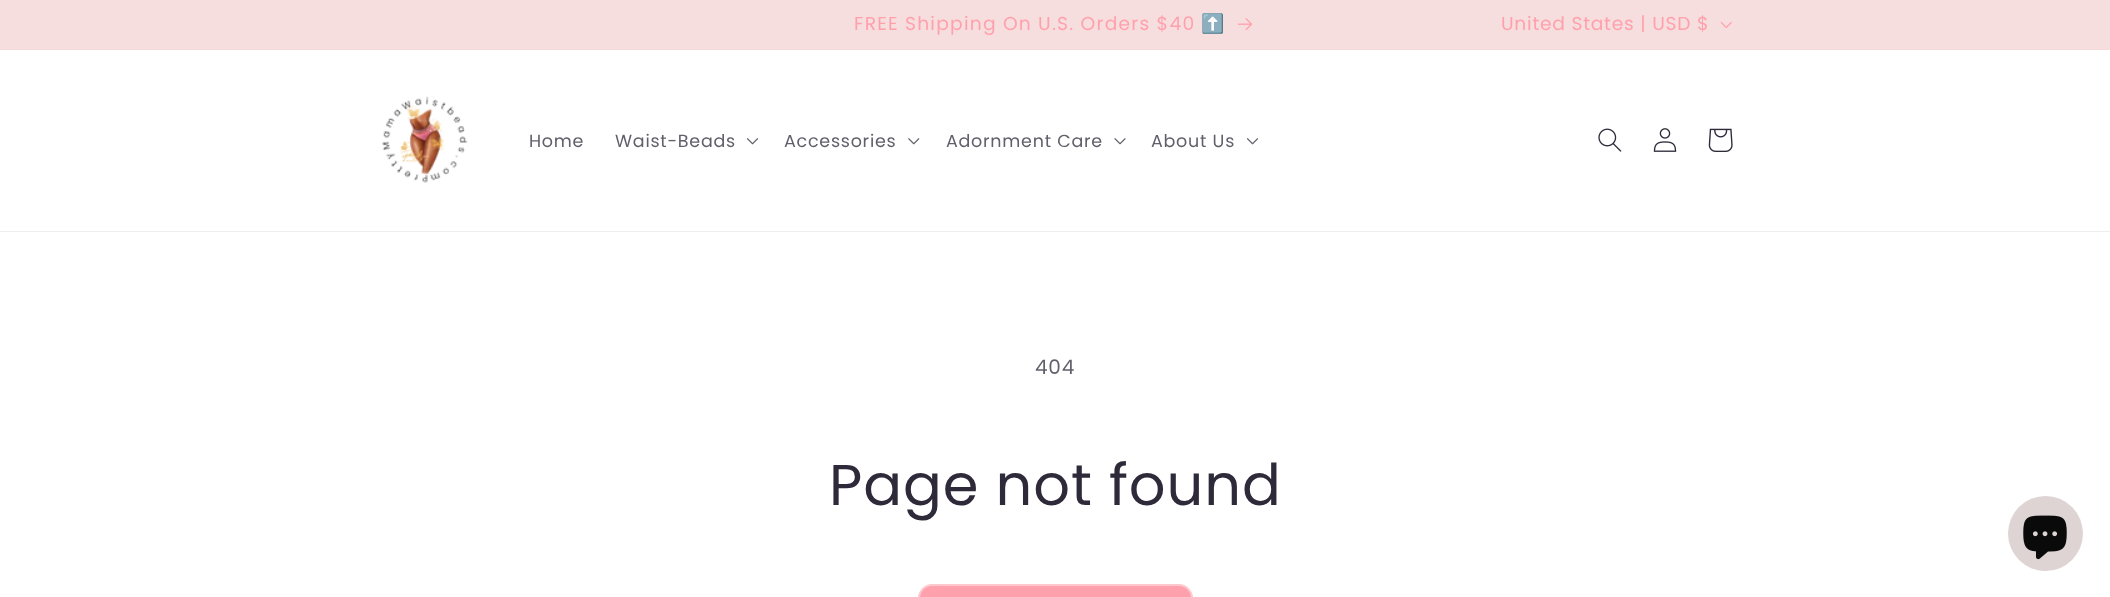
<svg xmlns="http://www.w3.org/2000/svg" width="2110" height="597" viewBox="0 0 2110 597">
  <rect width="100%" height="100%" fill="rgb(255,255,255)"/>
  <rect x="0" y="0" width="2110" height="49" fill="rgb(247,222,222)"/>
  <rect x="0" y="49" width="2110" height="1" fill="rgb(248,217,218)"/>
  <text x="854" y="30" word-spacing="-0.25" font-family="Poppins" font-size="18.7" letter-spacing="1.25" fill="rgb(255,161,173)">FREE Shipping On U.S. Orders $40</text>
  <text x="1201" y="30" font-family="Noto Color Emoji" font-size="18.7" letter-spacing="1.25" fill="rgb(255,161,173)">⬆️</text>
  <image x="1238" y="18" width="15" height="12" href="pic1.png"/>
  <text x="1501" y="30" font-family="Poppins" font-size="18.7" letter-spacing="0.75" fill="rgb(255,161,173)">United States | USD $</text>
  <image x="1720" y="22" width="12" height="6" href="pic2.png"/>
  <rect x="0" y="231" width="2110" height="1" fill="rgb(238,238,239)"/>
  <image x="382" y="96" width="86" height="87" href="pic3.png"/>
  <g font-family="Poppins" font-size="17.5" letter-spacing="0.75" fill="rgb(98,95,107)">
    <text x="529" y="147">Home</text>
    <text x="615" y="147">Waist-Beads</text>
  </g>
  <image x="746" y="138" width="13" height="7" href="pic4.png"/>
  <text x="784" y="147" font-family="Poppins" font-size="17.5" letter-spacing="0.75" fill="rgb(98,95,107)">Accessories</text>
  <image x="908" y="138" width="12" height="7" href="pic5.png"/>
  <text x="946" y="147" font-family="Poppins" font-size="17.5" letter-spacing="0.75" fill="rgb(98,95,107)">Adornment Care</text>
  <image x="1114" y="138" width="12" height="7" href="pic6.png"/>
  <text x="1151" y="147" font-family="Poppins" font-size="17.5" letter-spacing="0.75" fill="rgb(98,95,107)">About Us</text>
  <image x="1246" y="138" width="13" height="7" href="pic4.png"/>
  <image x="1598" y="128" width="24" height="24" href="pic7.png"/>
  <image x="1653" y="128" width="24" height="24" href="pic8.png"/>
  <image x="1708" y="128" width="25" height="24" href="pic9.png"/>
  <text x="1035" y="374" font-family="Poppins" font-size="20" letter-spacing="0.75" fill="rgb(98,95,107)">404</text>
  <text x="829" y="505" font-family="Poppins" font-size="57.5" letter-spacing="0.9" fill="rgb(46,42,57)">Page not found</text>
  <rect x="918.5" y="584.5" width="274" height="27" rx="13.5" fill="rgb(255,161,173)" stroke="rgb(255,161,173)"/>
  <rect x="919" y="585" width="273" height="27" rx="13" fill="none" stroke="rgba(253,251,247,0.45)" stroke-width="2"/>
  <circle cx="2045.5" cy="533.5" r="37.5" fill="rgb(222,212,212)"/>
  <image x="2023" y="515" width="44" height="45" href="pic10.png"/>
</svg>
